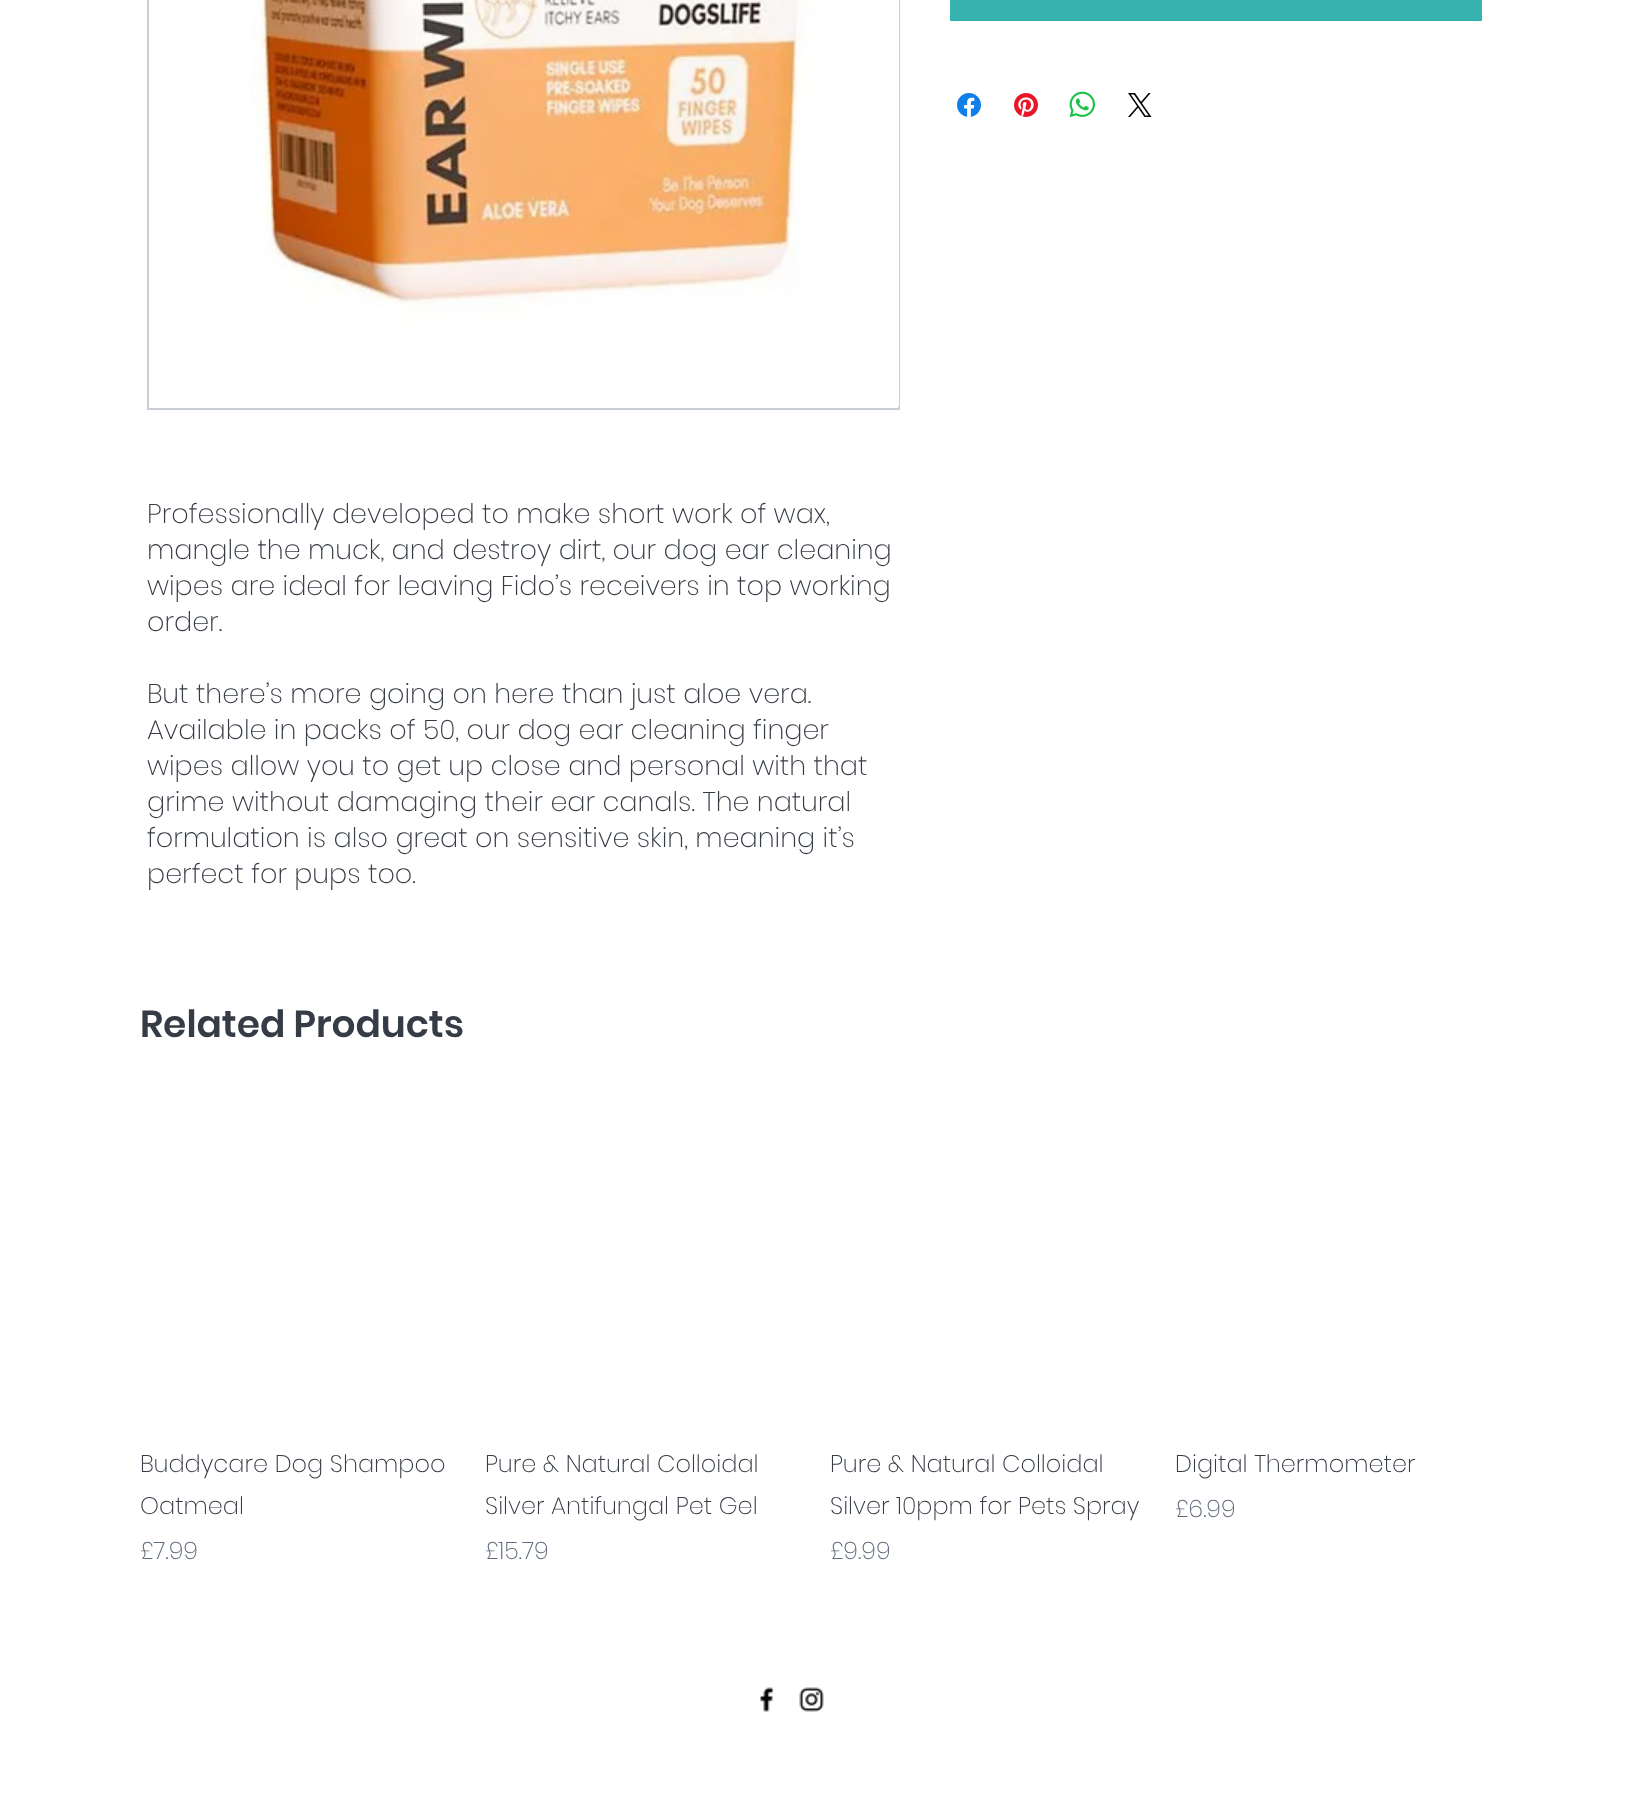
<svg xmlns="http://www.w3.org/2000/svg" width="1628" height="1812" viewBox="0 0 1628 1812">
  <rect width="100%" height="100%" fill="rgb(255,255,255)"/>
  <rect x="950" y="0" width="532" height="21" fill="rgb(54,178,176)"/>
  <image x="957" y="93" width="24" height="24" href="pic1.png"/>
  <image x="1014" y="93" width="24" height="24" href="pic2.png"/>
  <image x="1069" y="91" width="26" height="27" href="pic3.png"/>
  <image x="1128" y="93" width="24" height="24" href="pic4.png"/>
  <rect x="148" y="-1" width="751" height="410" fill="none" stroke="rgb(201,205,213)" stroke-width="2"/>
  <image x="250" y="0" width="649" height="407" href="pic5.png"/>
  <g font-family="Poppins" font-size="27" font-weight="200" fill="rgb(54,60,69)">
    <text>
      <tspan x="147" y="523">Professionally developed to make short work of wax,</tspan>
      <tspan x="147" y="559">mangle the muck, and destroy dirt, our dog ear cleaning</tspan>
      <tspan x="147" y="595">wipes are ideal for leaving Fido’s receivers in top working</tspan>
      <tspan x="147" y="631">order.</tspan>
    </text>
    <text>
      <tspan x="147" y="703">But there’s more going on here than just aloe vera.</tspan>
      <tspan x="147" y="739">Available in packs of 50, our dog ear cleaning finger</tspan>
      <tspan x="147" y="775">wipes allow you to get up close and personal with that</tspan>
      <tspan x="147" y="811">grime without damaging their ear canals. The natural</tspan>
      <tspan x="147" y="847">formulation is also great on sensitive skin, meaning it’s</tspan>
      <tspan x="147" y="883">perfect for pups too.</tspan>
    </text>
  </g>
  <text x="140" y="1037" font-family="Poppins" font-size="37.5" font-weight="600" fill="rgb(54,60,69)">Related Products</text>
  <g font-family="Poppins" font-size="24" font-weight="200" fill="rgb(54,60,69)">
    <text>
      <tspan x="140" y="1472">Buddycare Dog Shampoo</tspan>
      <tspan x="140" y="1514">Oatmeal</tspan>
    </text>
  </g>
  <text x="140" y="1559" font-family="Poppins" font-size="24" font-weight="200" fill="rgb(96,107,123)">£7.99</text>
  <g font-family="Poppins" font-size="24" font-weight="200" fill="rgb(54,60,69)">
    <text>
      <tspan x="485" y="1472">Pure &amp; Natural Colloidal</tspan>
      <tspan x="485" y="1514">Silver Antifungal Pet Gel</tspan>
    </text>
  </g>
  <text x="485" y="1559" font-family="Poppins" font-size="24" font-weight="200" fill="rgb(96,107,123)">£15.79</text>
  <g font-family="Poppins" font-size="24" font-weight="200" fill="rgb(54,60,69)">
    <text>
      <tspan x="830" y="1472">Pure &amp; Natural Colloidal</tspan>
      <tspan x="830" y="1514">Silver 10ppm for Pets Spray</tspan>
    </text>
  </g>
  <text x="830" y="1559" font-family="Poppins" font-size="24" font-weight="200" fill="rgb(96,107,123)">£9.99</text>
  <text x="1175" y="1472" font-family="Poppins" font-size="24" font-weight="200" fill="rgb(54,60,69)">Digital Thermometer</text>
  <text x="1175" y="1517" font-family="Poppins" font-size="24" font-weight="200" fill="rgb(96,107,123)">£6.99</text>
  <image x="760" y="1687" width="14" height="25" href="pic6.png"/>
  <image x="799" y="1687" width="25" height="25" href="pic7.png"/>
</svg>
